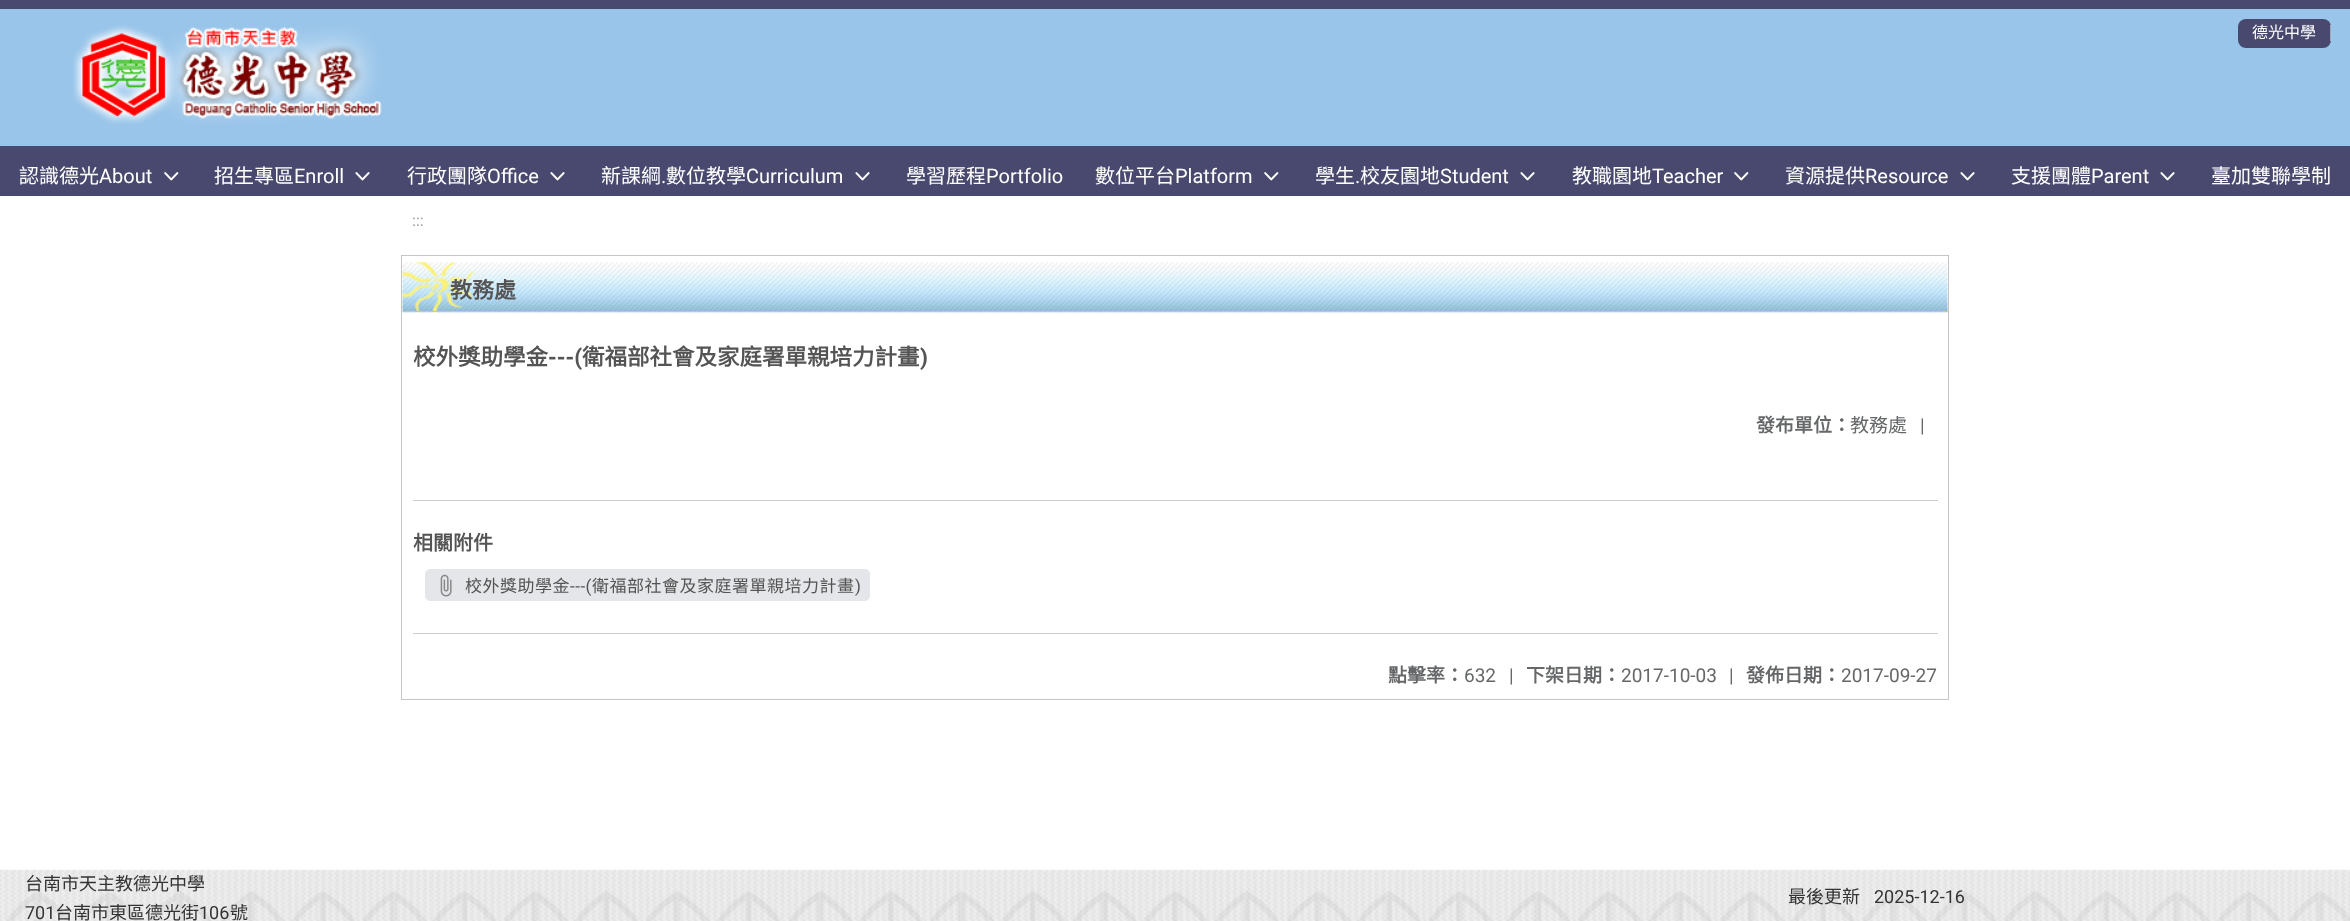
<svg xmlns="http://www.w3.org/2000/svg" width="2350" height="921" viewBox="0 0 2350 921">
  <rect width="100%" height="100%" fill="rgb(255,255,255)"/>
  <rect x="0" y="9" width="2350" height="137" fill="rgb(153,197,234)"/>
  <rect x="0" y="0" width="2350" height="9" fill="rgb(73,73,111)"/>
  <image x="73" y="25" width="309" height="99" href="pic1.png"/>
  <rect x="2238" y="19" width="93" height="29" rx="8" fill="rgb(73,73,111)"/>
  <text x="2252" y="38" font-family="Noto Sans CJK TC" font-size="16" fill="rgb(255,255,255)">德光中學</text>
  <rect x="2330" y="25" width="1" height="16" fill="rgba(255,255,255,0.5)"/>
  <rect x="0" y="146" width="2350" height="50" fill="rgb(73,73,111)"/>
  <text x="19" y="183" font-family="Noto Sans CJK TC" font-size="20" fill="rgb(255,255,255)">認識德光</text>
  <text x="99" y="183" font-family="Roboto" font-size="20" fill="rgb(255,255,255)">About</text>
  <image x="164" y="172" width="15" height="9" href="pic2.png"/>
  <text x="214" y="183" font-family="Noto Sans CJK TC" font-size="20" fill="rgb(255,255,255)">招生專區</text>
  <text x="294" y="183" font-family="Roboto" font-size="20" fill="rgb(255,255,255)">Enroll</text>
  <image x="355" y="172" width="15" height="9" href="pic3.png"/>
  <text x="407" y="183" font-family="Noto Sans CJK TC" font-size="20" fill="rgb(255,255,255)">行政團隊</text>
  <text x="487" y="183" font-family="Roboto" font-size="20" fill="rgb(255,255,255)">Office</text>
  <image x="550" y="172" width="15" height="9" href="pic3.png"/>
  <text x="601" y="183" font-family="Noto Sans CJK TC" font-size="20" fill="rgb(255,255,255)">新課綱</text>
  <text x="661" y="183" font-family="Roboto" font-size="20" fill="rgb(255,255,255)">.</text>
  <text x="666" y="183" font-family="Noto Sans CJK TC" font-size="20" fill="rgb(255,255,255)">數位教學</text>
  <text x="746" y="183" font-family="Roboto" font-size="20" fill="rgb(255,255,255)">Curriculum</text>
  <image x="855" y="172" width="15" height="9" href="pic3.png"/>
  <text x="906" y="183" font-family="Noto Sans CJK TC" font-size="20" fill="rgb(255,255,255)">學習歷程</text>
  <text x="986" y="183" font-family="Roboto" font-size="20" fill="rgb(255,255,255)">Portfolio</text>
  <text x="1095" y="183" font-family="Noto Sans CJK TC" font-size="20" fill="rgb(255,255,255)">數位平台</text>
  <text x="1175" y="183" font-family="Roboto" font-size="20" fill="rgb(255,255,255)">Platform</text>
  <image x="1264" y="172" width="15" height="9" href="pic2.png"/>
  <text x="1315" y="183" font-family="Noto Sans CJK TC" font-size="20" fill="rgb(255,255,255)">學生</text>
  <text x="1355" y="183" font-family="Roboto" font-size="20" fill="rgb(255,255,255)">.</text>
  <text x="1360" y="183" font-family="Noto Sans CJK TC" font-size="20" fill="rgb(255,255,255)">校友園地</text>
  <text x="1440" y="183" font-family="Roboto" font-size="20" fill="rgb(255,255,255)">Student</text>
  <image x="1520" y="172" width="15" height="9" href="pic3.png"/>
  <text x="1572" y="183" font-family="Noto Sans CJK TC" font-size="20" fill="rgb(255,255,255)">教職園地</text>
  <text x="1652" y="183" font-family="Roboto" font-size="20" fill="rgb(255,255,255)">Teacher</text>
  <image x="1734" y="172" width="15" height="9" href="pic2.png"/>
  <text x="1785" y="183" font-family="Noto Sans CJK TC" font-size="20" fill="rgb(255,255,255)">資源提供</text>
  <text x="1865" y="183" font-family="Roboto" font-size="20" fill="rgb(255,255,255)">Resource</text>
  <image x="1960" y="172" width="15" height="9" href="pic3.png"/>
  <text x="2011" y="183" font-family="Noto Sans CJK TC" font-size="20" fill="rgb(255,255,255)">支援團體</text>
  <text x="2091" y="183" font-family="Roboto" font-size="20" fill="rgb(255,255,255)">Parent</text>
  <image x="2160" y="172" width="15" height="9" href="pic3.png"/>
  <text x="2211" y="183" font-family="Noto Sans CJK TC" font-size="20" fill="rgb(255,255,255)">臺加雙聯學制</text>
  <text x="412" y="226" font-family="Roboto" font-size="16" fill="rgb(158,158,158)">:::</text>
  <rect x="401.5" y="255.5" width="1547" height="444" fill="none" stroke="rgb(197,197,197)"/>
  <image x="402" y="262" width="1546" height="51" href="pic4.png"/>
  <text x="450" y="298" font-family="Noto Sans CJK TC" font-size="22" font-weight="bold" fill="rgb(84,84,84)">教務處</text>
  <rect x="403" y="311" width="1545" height="1" fill="rgb(192,208,151)"/>
  <text x="413" y="365" font-family="Noto Sans CJK TC" font-size="22.5" font-weight="bold" fill="rgb(84,84,84)">校外獎助學金</text>
  <text x="548" y="365" font-family="Roboto" font-size="22.5" font-weight="bold" fill="rgb(84,84,84)">---(</text>
  <text x="582" y="365" font-family="Noto Sans CJK TC" font-size="22.5" font-weight="bold" fill="rgb(84,84,84)">衛福部社會及家庭署單親培力計畫</text>
  <text x="920" y="365" font-family="Roboto" font-size="22.5" font-weight="bold" fill="rgb(84,84,84)">)</text>
  <text x="1756" y="432" font-family="Noto Sans CJK TC" font-size="19" font-weight="bold" fill="rgb(101,103,105)">發布單位：</text>
  <text x="1850" y="432" font-family="Noto Sans CJK TC" font-size="19" fill="rgb(101,103,105)">教務處</text>
  <text x="1920" y="432" font-family="Roboto" font-size="19" fill="rgb(101,103,105)">|</text>
  <rect x="413" y="500" width="1525" height="1" fill="rgb(204,204,204)"/>
  <text x="413" y="550" font-family="Noto Sans CJK TC" font-size="20" font-weight="bold" fill="rgb(84,84,84)">相關附件</text>
  <rect x="425.5" y="569.5" width="444" height="31" rx="4.5" fill="rgb(229,230,233)" stroke="rgb(229,230,233)"/>
  <image x="440" y="574" width="12" height="23" href="pic5.png"/>
  <text x="465" y="592" font-family="Noto Sans CJK TC" font-size="17" letter-spacing="0.5" fill="rgb(84,84,84)">校外獎助學金</text>
  <text x="570" y="592" font-family="Roboto" font-size="17" letter-spacing="0.5" fill="rgb(84,84,84)">---(</text>
  <text x="592" y="592" font-family="Noto Sans CJK TC" font-size="17" letter-spacing="0.5" fill="rgb(84,84,84)">衛福部社會及家庭署單親培力計畫</text>
  <text x="855" y="592" font-family="Roboto" font-size="17" letter-spacing="0.5" fill="rgb(84,84,84)">)</text>
  <rect x="413" y="633" width="1525" height="1" fill="rgb(204,204,204)"/>
  <text x="1388" y="682" font-family="Noto Sans CJK TC" font-size="19" font-weight="bold" fill="rgb(101,103,105)">點擊率：</text>
  <g font-family="Roboto" font-size="19" fill="rgb(101,103,105)">
    <text x="1464" y="682">632</text>
    <text x="1509" y="682">|</text>
  </g>
  <text x="1526" y="682" font-family="Noto Sans CJK TC" font-size="19" font-weight="bold" fill="rgb(101,103,105)">下架日期：</text>
  <g font-family="Roboto" font-size="19" fill="rgb(101,103,105)">
    <text x="1621" y="682">2017-10-03</text>
    <text x="1729" y="682">|</text>
  </g>
  <text x="1746" y="682" font-family="Noto Sans CJK TC" font-size="19" font-weight="bold" fill="rgb(101,103,105)">發佈日期：</text>
  <text x="1841" y="682" font-family="Roboto" font-size="19" fill="rgb(101,103,105)">2017-09-27</text>
  <image x="0" y="869" width="2350" height="52" href="pic6.png"/>
  <text x="25" y="890" font-family="Noto Sans CJK TC" font-size="18" fill="rgb(51,51,51)">台南市天主教德光中學</text>
  <text x="25" y="919" font-family="Roboto" font-size="18" fill="rgb(51,51,51)">701</text>
  <text x="55" y="919" font-family="Noto Sans CJK TC" font-size="18" fill="rgb(51,51,51)">台南市東區德光街</text>
  <text x="199" y="919" font-family="Roboto" font-size="18" fill="rgb(51,51,51)">106</text>
  <g font-family="Noto Sans CJK TC" font-size="18" fill="rgb(51,51,51)">
    <text x="230" y="919">號</text>
    <text x="1788" y="903">最後更新</text>
  </g>
  <text x="1874" y="903" font-family="Roboto" font-size="18" fill="rgb(51,51,51)">2025-12-16</text>
</svg>
